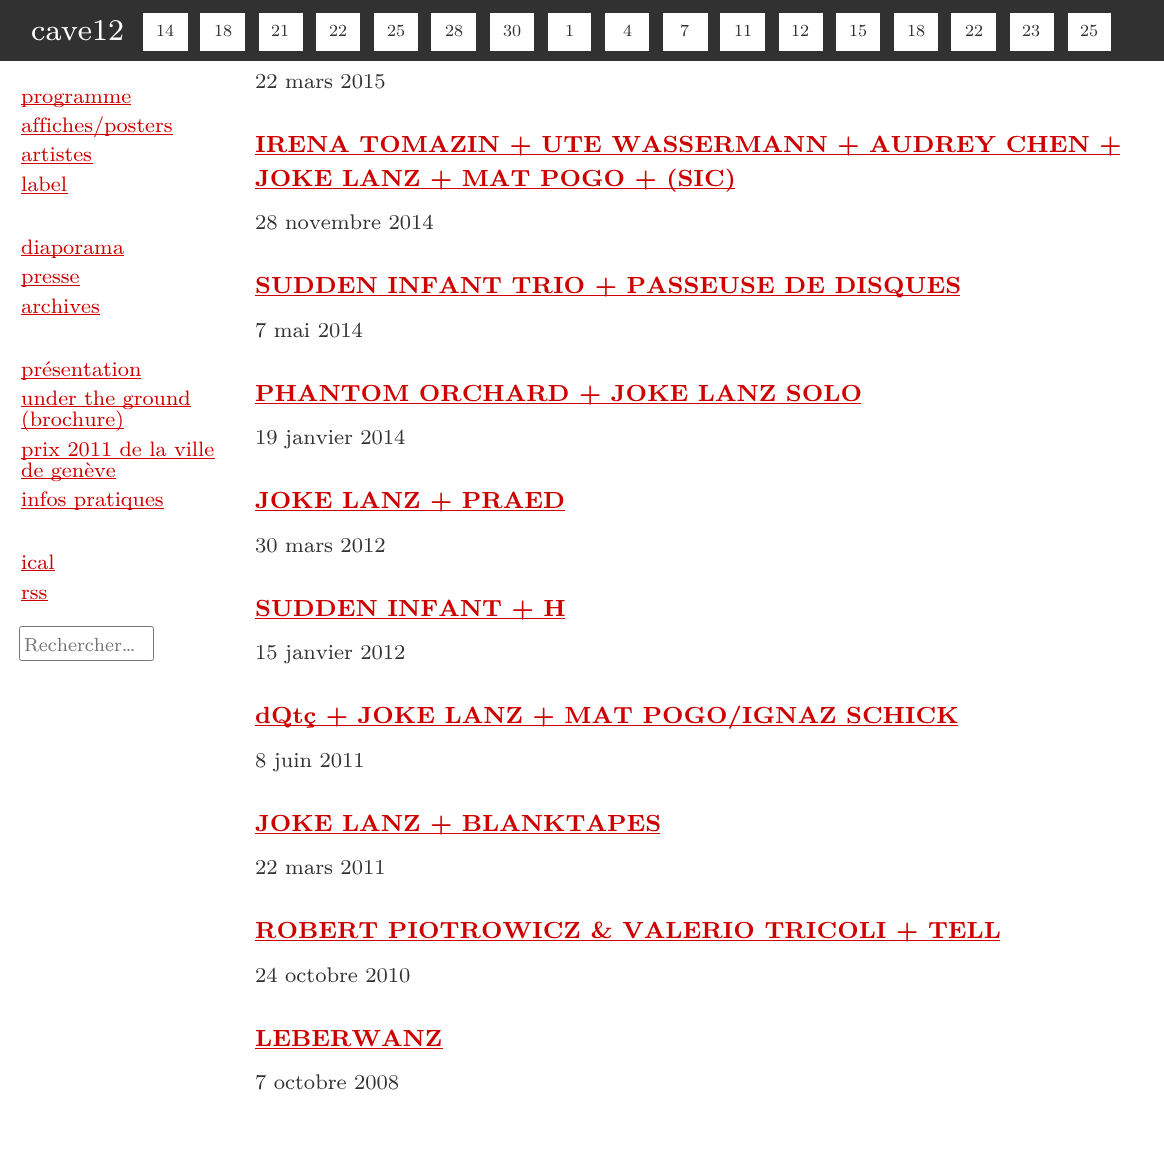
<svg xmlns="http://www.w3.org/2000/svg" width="1164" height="1159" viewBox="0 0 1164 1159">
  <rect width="100%" height="100%" fill="rgb(255,255,255)"/>
  <rect x="0" y="0" width="1164" height="61" fill="rgb(49,49,49)"/>
  <text x="31" y="40" font-family="'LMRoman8'" font-size="30" fill="rgb(255,255,255)">cave12</text>
  <rect x="143" y="13" width="45" height="38" fill="rgb(255,255,255)"/>
  <text x="156" y="36" font-family="'LMRoman8'" font-size="17" fill="rgb(51,51,51)">14</text>
  <rect x="200" y="13" width="45" height="38" fill="rgb(255,255,255)"/>
  <text x="214" y="36" font-family="'LMRoman8'" font-size="17" fill="rgb(51,51,51)">18</text>
  <rect x="259" y="13" width="44" height="38" fill="rgb(255,255,255)"/>
  <text x="271" y="36" font-family="'LMRoman8'" font-size="17" fill="rgb(51,51,51)">21</text>
  <rect x="316" y="13" width="44" height="38" fill="rgb(255,255,255)"/>
  <text x="329" y="36" font-family="'LMRoman8'" font-size="17" fill="rgb(51,51,51)">22</text>
  <rect x="374" y="13" width="44" height="38" fill="rgb(255,255,255)"/>
  <text x="387" y="36" font-family="'LMRoman8'" font-size="17" fill="rgb(51,51,51)">25</text>
  <rect x="431" y="13" width="45" height="38" fill="rgb(255,255,255)"/>
  <text x="445" y="36" font-family="'LMRoman8'" font-size="17" fill="rgb(51,51,51)">28</text>
  <rect x="490" y="13" width="44" height="38" fill="rgb(255,255,255)"/>
  <text x="503" y="36" font-family="'LMRoman8'" font-size="17" fill="rgb(51,51,51)">30</text>
  <rect x="548" y="13" width="43" height="38" fill="rgb(255,255,255)"/>
  <text x="565" y="36" font-family="'LMRoman8'" font-size="17" fill="rgb(51,51,51)">1</text>
  <rect x="605" y="13" width="44" height="38" fill="rgb(255,255,255)"/>
  <text x="623" y="36" font-family="'LMRoman8'" font-size="17" fill="rgb(51,51,51)">4</text>
  <rect x="663" y="13" width="45" height="38" fill="rgb(255,255,255)"/>
  <text x="680" y="36" font-family="'LMRoman8'" font-size="17" fill="rgb(51,51,51)">7</text>
  <rect x="720" y="13" width="45" height="38" fill="rgb(255,255,255)"/>
  <text x="734" y="36" font-family="'LMRoman8'" font-size="17" fill="rgb(51,51,51)">11</text>
  <rect x="779" y="13" width="44" height="38" fill="rgb(255,255,255)"/>
  <text x="791" y="36" font-family="'LMRoman8'" font-size="17" fill="rgb(51,51,51)">12</text>
  <rect x="836" y="13" width="44" height="38" fill="rgb(255,255,255)"/>
  <text x="849" y="36" font-family="'LMRoman8'" font-size="17" fill="rgb(51,51,51)">15</text>
  <rect x="894" y="13" width="44" height="38" fill="rgb(255,255,255)"/>
  <text x="907" y="36" font-family="'LMRoman8'" font-size="17" fill="rgb(51,51,51)">18</text>
  <rect x="951" y="13" width="45" height="38" fill="rgb(255,255,255)"/>
  <text x="965" y="36" font-family="'LMRoman8'" font-size="17" fill="rgb(51,51,51)">22</text>
  <rect x="1010" y="13" width="44" height="38" fill="rgb(255,255,255)"/>
  <text x="1022" y="36" font-family="'LMRoman8'" font-size="17" fill="rgb(51,51,51)">23</text>
  <rect x="1068" y="13" width="43" height="38" fill="rgb(255,255,255)"/>
  <text x="1080" y="36" font-family="'LMRoman8'" font-size="17" fill="rgb(51,51,51)">25</text>
  <rect x="21" y="104" width="110" height="1" fill="rgb(206,0,0)"/>
  <text x="21" y="103" font-family="'LMRoman8'" font-size="21" fill="rgb(206,0,0)">programme</text>
  <rect x="21" y="134" width="152" height="1" fill="rgb(206,0,0)"/>
  <g font-family="'LMRoman8'" font-size="21" fill="rgb(206,0,0)">
    <text>
      <tspan x="21" y="132">affiches/posters</tspan>
      <tspan x="21" y="161">artistes</tspan>
    </text>
  </g>
  <rect x="21" y="163" width="72" height="1" fill="rgb(206,0,0)"/>
  <text x="21" y="191" font-family="'LMRoman8'" font-size="21" fill="rgb(206,0,0)">label</text>
  <rect x="21" y="193" width="47" height="1" fill="rgb(206,0,0)"/>
  <rect x="21" y="255" width="103" height="1" fill="rgb(206,0,0)"/>
  <text x="21" y="254" font-family="'LMRoman8'" font-size="21" fill="rgb(206,0,0)">diaporama</text>
  <rect x="21" y="285" width="59" height="1" fill="rgb(206,0,0)"/>
  <g font-family="'LMRoman8'" font-size="21" fill="rgb(206,0,0)">
    <text>
      <tspan x="21" y="283">presse</tspan>
      <tspan x="21" y="313">archives</tspan>
    </text>
  </g>
  <rect x="21" y="314" width="79" height="1" fill="rgb(206,0,0)"/>
  <rect x="21" y="378" width="120" height="1" fill="rgb(206,0,0)"/>
  <text x="21" y="376" font-family="'LMRoman8'" font-size="21" fill="rgb(206,0,0)">présentation</text>
  <rect x="21" y="406" width="170" height="1" fill="rgb(206,0,0)"/>
  <text x="21" y="405" font-family="'LMRoman8'" font-size="21" fill="rgb(206,0,0)">under the ground</text>
  <rect x="21" y="428" width="103" height="1" fill="rgb(206,0,0)"/>
  <text x="21" y="426" font-family="'LMRoman8'" font-size="21" fill="rgb(206,0,0)">(brochure)</text>
  <rect x="21" y="458" width="194" height="1" fill="rgb(206,0,0)"/>
  <text x="21" y="456" font-family="'LMRoman8'" font-size="21" fill="rgb(206,0,0)">prix 2011 de la ville</text>
  <rect x="21" y="478" width="95" height="1" fill="rgb(206,0,0)"/>
  <text x="21" y="477" font-family="'LMRoman8'" font-size="21" fill="rgb(206,0,0)">de genève</text>
  <rect x="21" y="508" width="143" height="1" fill="rgb(206,0,0)"/>
  <g font-family="'LMRoman8'" font-size="21" fill="rgb(206,0,0)">
    <text x="21" y="506">infos pratiques</text>
    <text x="21" y="569">ical</text>
  </g>
  <rect x="21" y="570" width="34" height="1" fill="rgb(206,0,0)"/>
  <text x="21" y="599" font-family="'LMRoman8'" font-size="21" fill="rgb(206,0,0)">rss</text>
  <rect x="21" y="600" width="27" height="1" fill="rgb(206,0,0)"/>
  <rect x="19.5" y="626.5" width="134" height="34" rx="2" fill="none" stroke="rgb(118,118,118)"/>
  <text x="24" y="651" font-family="'LMRoman8'" font-size="19" fill="rgb(117,117,117)">Rechercher…</text>
  <text x="255" y="88" font-family="'LMRoman8'" font-size="21.25" fill="rgb(51,51,51)">22 mars 2015</text>
  <rect x="255" y="154" width="865" height="1" fill="rgb(206,0,0)"/>
  <text x="255" y="152" font-family="'LMRoman8'" font-size="23.4" font-weight="bold" fill="rgb(206,0,0)">IRENA TOMAZIN + UTE WASSERMANN + AUDREY CHEN +</text>
  <rect x="255" y="188" width="480" height="1" fill="rgb(206,0,0)"/>
  <text x="255" y="186" font-family="'LMRoman8'" font-size="23.4" font-weight="bold" fill="rgb(206,0,0)">JOKE LANZ + MAT POGO + (SIC)</text>
  <text x="255" y="229" font-family="'LMRoman8'" font-size="21.25" fill="rgb(51,51,51)">28 novembre 2014</text>
  <rect x="255" y="295" width="705" height="1" fill="rgb(206,0,0)"/>
  <text x="255" y="293" font-family="'LMRoman8'" font-size="23.4" font-weight="bold" fill="rgb(206,0,0)">SUDDEN INFANT TRIO + PASSEUSE DE DISQUES</text>
  <text x="255" y="337" font-family="'LMRoman8'" font-size="21.25" fill="rgb(51,51,51)">7 mai 2014</text>
  <rect x="255" y="403" width="606" height="1" fill="rgb(206,0,0)"/>
  <text x="255" y="401" font-family="'LMRoman8'" font-size="23.4" font-weight="bold" fill="rgb(206,0,0)">PHANTOM ORCHARD + JOKE LANZ SOLO</text>
  <text x="255" y="444" font-family="'LMRoman8'" font-size="21.25" fill="rgb(51,51,51)">19 janvier 2014</text>
  <rect x="255" y="510" width="310" height="1" fill="rgb(206,0,0)"/>
  <text x="255" y="508" font-family="'LMRoman8'" font-size="23.4" font-weight="bold" fill="rgb(206,0,0)">JOKE LANZ + PRAED</text>
  <text x="255" y="552" font-family="'LMRoman8'" font-size="21.25" fill="rgb(51,51,51)">30 mars 2012</text>
  <rect x="255" y="618" width="310" height="1" fill="rgb(206,0,0)"/>
  <text x="255" y="616" font-family="'LMRoman8'" font-size="23.4" font-weight="bold" fill="rgb(206,0,0)">SUDDEN INFANT + H</text>
  <text x="255" y="659" font-family="'LMRoman8'" font-size="21.25" fill="rgb(51,51,51)">15 janvier 2012</text>
  <rect x="255" y="725" width="703" height="1" fill="rgb(206,0,0)"/>
  <text x="255" y="723" font-family="'LMRoman8'" font-size="23.4" font-weight="bold" fill="rgb(206,0,0)">dQtç + JOKE LANZ + MAT POGO/IGNAZ SCHICK</text>
  <text x="255" y="767" font-family="'LMRoman8'" font-size="21.25" fill="rgb(51,51,51)">8 juin 2011</text>
  <rect x="255" y="833" width="405" height="1" fill="rgb(206,0,0)"/>
  <text x="255" y="831" font-family="'LMRoman8'" font-size="23.4" font-weight="bold" fill="rgb(206,0,0)">JOKE LANZ + BLANKTAPES</text>
  <text x="255" y="874" font-family="'LMRoman8'" font-size="21.25" fill="rgb(51,51,51)">22 mars 2011</text>
  <rect x="255" y="940" width="745" height="1" fill="rgb(206,0,0)"/>
  <text x="255" y="938" font-family="'LMRoman8'" font-size="23.4" font-weight="bold" fill="rgb(206,0,0)">ROBERT PIOTROWICZ &amp; VALERIO TRICOLI + TELL</text>
  <text x="255" y="982" font-family="'LMRoman8'" font-size="21.25" fill="rgb(51,51,51)">24 octobre 2010</text>
  <text x="255" y="1046" font-family="'LMRoman8'" font-size="23.4" font-weight="bold" fill="rgb(206,0,0)">LEBERWANZ</text>
  <rect x="255" y="1048" width="188" height="1" fill="rgb(206,0,0)"/>
  <text x="255" y="1089" font-family="'LMRoman8'" font-size="21.25" fill="rgb(51,51,51)">7 octobre 2008</text>
</svg>
